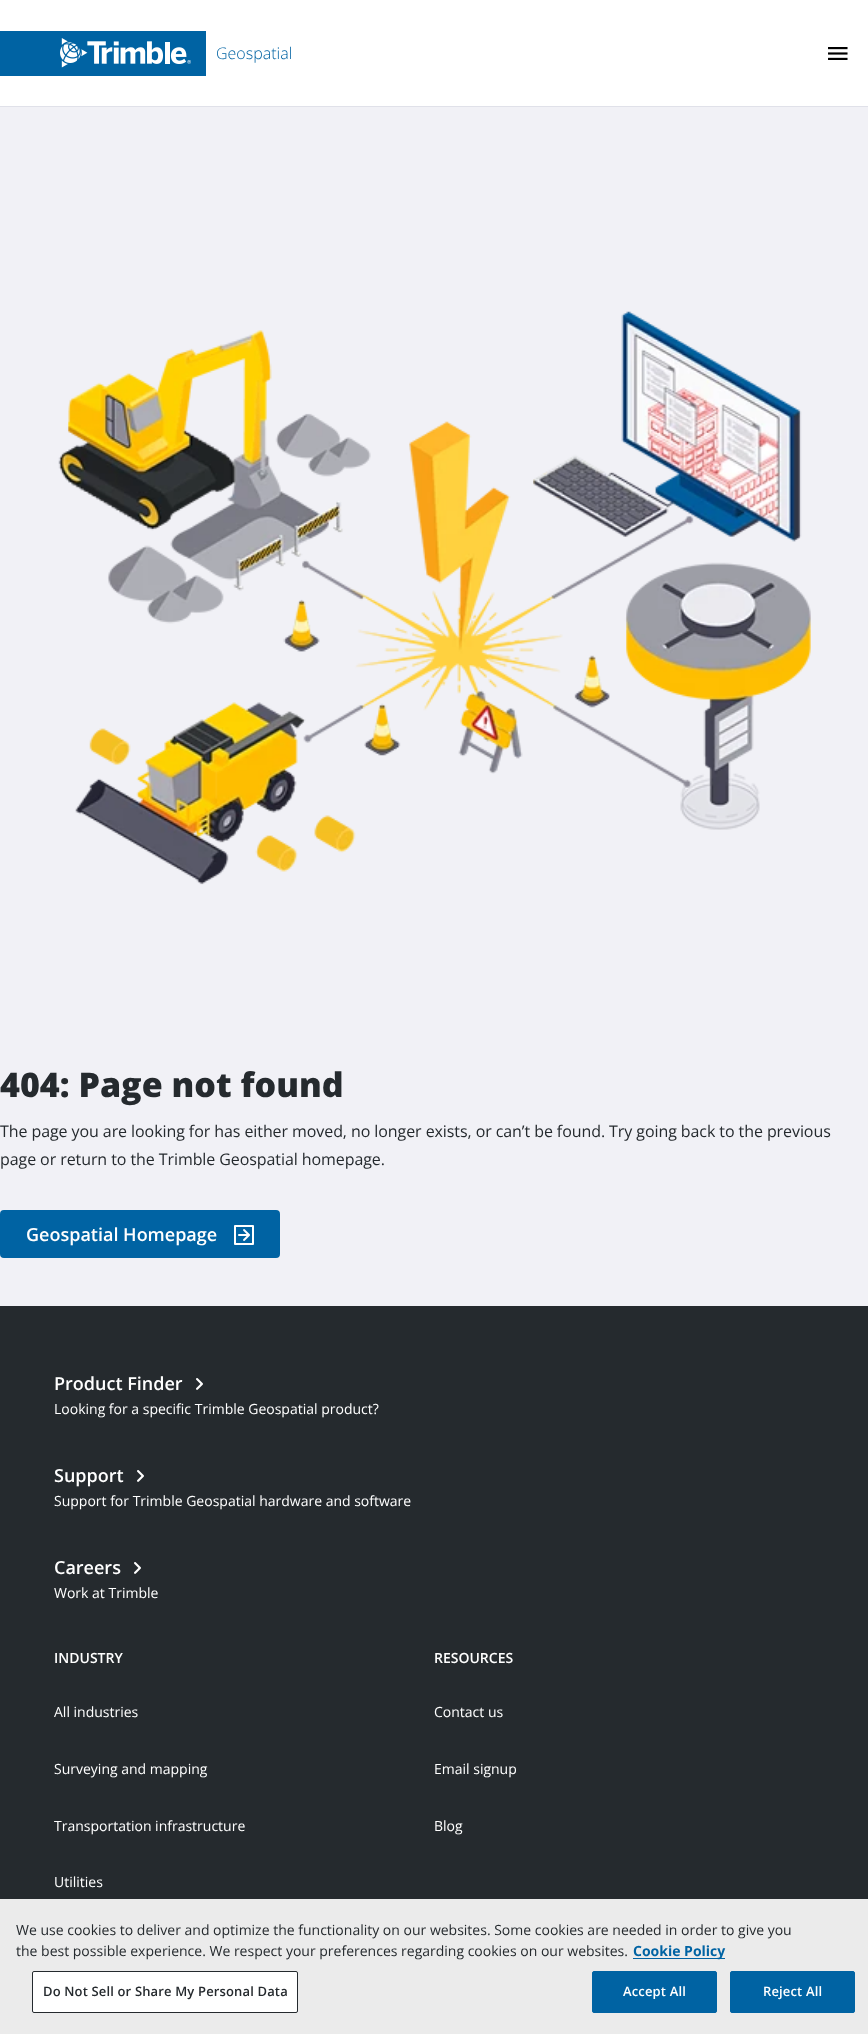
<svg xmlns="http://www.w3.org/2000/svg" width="868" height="2034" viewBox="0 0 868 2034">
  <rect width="100%" height="100%" fill="rgb(37,42,46)"/>
  <rect x="0" y="0" width="868" height="106" fill="rgb(255,255,255)"/>
  <rect x="0" y="106" width="868" height="1" fill="rgb(224,225,233)"/>
  <rect x="0" y="31" width="206" height="45" fill="rgb(0,99,163)"/>
  <image x="60" y="38" width="131" height="30" href="pic1.png"/>
  <text x="216" y="59" font-family="Open Sans" font-size="16" font-weight="300" fill="rgb(0,99,163)">Geospatial</text>
  <image x="828" y="47" width="20" height="13" href="pic2.png"/>
  <rect x="0" y="107" width="868" height="1199" fill="rgb(241,241,246)"/>
  <image x="58" y="311" width="753" height="574" href="pic3.png"/>
  <text x="0" y="1097" font-family="Open Sans" font-size="34" font-weight="800" fill="rgb(37,42,46)">404: Page not found</text>
  <g font-family="Open Sans" font-size="16" letter-spacing="-0.08" fill="rgb(37,42,46)">
    <text>
      <tspan x="0" y="1137">The page you are looking for has either moved, no longer exists, or can’t be found. Try going back to the previous</tspan>
      <tspan x="0" y="1165">page or return to the Trimble Geospatial homepage.</tspan>
    </text>
  </g>
  <rect x="1" y="1211" width="278" height="46" rx="3" fill="rgb(0,99,163)" stroke="rgb(0,99,163)" stroke-width="2"/>
  <text x="26" y="1241" font-family="Open Sans" font-size="18" font-weight="600" fill="rgb(255,255,255)">Geospatial Homepage</text>
  <image x="234" y="1225" width="20" height="20" href="pic4.png"/>
  <text x="54" y="1390" font-family="Open Sans" font-size="18" font-weight="600" fill="rgb(255,255,255)">Product Finder</text>
  <image x="196" y="1378" width="7" height="12" href="pic5.png"/>
  <text x="54" y="1414" font-family="Open Sans" font-size="14" fill="rgb(255,255,255)">Looking for a specific Trimble Geospatial product?</text>
  <text x="54" y="1482" font-family="Open Sans" font-size="18" font-weight="600" fill="rgb(255,255,255)">Support</text>
  <image x="137" y="1470" width="7" height="12" href="pic5.png"/>
  <text x="54" y="1506" font-family="Open Sans" font-size="14" fill="rgb(255,255,255)">Support for Trimble Geospatial hardware and software</text>
  <text x="54" y="1574" font-family="Open Sans" font-size="18" font-weight="600" fill="rgb(255,255,255)">Careers</text>
  <image x="134" y="1562" width="7" height="12" href="pic5.png"/>
  <text x="54" y="1598" font-family="Open Sans" font-size="14" fill="rgb(255,255,255)">Work at Trimble</text>
  <text x="54" y="1663" font-family="Open Sans" font-size="14" font-weight="600" fill="rgb(255,255,255)">INDUSTRY</text>
  <g font-family="Open Sans" font-size="14" fill="rgb(255,255,255)">
    <text x="54" y="1717">All industries</text>
    <text x="54" y="1774">Surveying and mapping</text>
    <text x="54" y="1831">Transportation infrastructure</text>
    <text x="54" y="1887">Utilities</text>
  </g>
  <text x="434" y="1663" font-family="Open Sans" font-size="14" font-weight="600" fill="rgb(255,255,255)">RESOURCES</text>
  <g font-family="Open Sans" font-size="14" fill="rgb(255,255,255)">
    <text x="434" y="1717">Contact us</text>
    <text x="434" y="1774">Email signup</text>
    <text x="434" y="1831">Blog</text>
  </g>
  <rect x="0" y="1899" width="868" height="135" fill="rgb(235,235,235)"/>
  <g font-family="Open Sans" font-size="14" fill="rgb(37,42,46)">
    <text>
      <tspan x="16" y="1935">We use cookies to deliver and optimize the functionality on our websites. Some cookies are needed in order to give you</tspan>
      <tspan x="16" y="1956">the best possible experience. We respect your preferences regarding cookies on our websites.</tspan>
    </text>
  </g>
  <rect x="633" y="1958" width="92" height="1" fill="rgb(0,99,163)"/>
  <text x="633" y="1956" font-family="Open Sans" font-size="14" font-weight="bold" fill="rgb(0,99,163)">Cookie Policy</text>
  <rect x="32.5" y="1971.5" width="265" height="41" rx="1.5" fill="rgb(255,255,255)" stroke="rgb(37,42,46)"/>
  <text x="43" y="1996" font-family="Open Sans" font-size="13" font-weight="600" letter-spacing="0.15" fill="rgb(37,42,46)">Do Not Sell or Share My Personal Data</text>
  <rect x="592.5" y="1971.5" width="124" height="41" rx="1.5" fill="rgb(0,99,163)" stroke="rgb(0,99,163)"/>
  <text x="623" y="1996" font-family="Open Sans" font-size="13" font-weight="600" letter-spacing="0.15" fill="rgb(255,255,255)">Accept All</text>
  <rect x="730.5" y="1971.5" width="124" height="41" rx="1.5" fill="rgb(0,99,163)" stroke="rgb(0,99,163)"/>
  <text x="763" y="1996" font-family="Open Sans" font-size="13" font-weight="600" letter-spacing="0.15" fill="rgb(255,255,255)">Reject All</text>
</svg>
